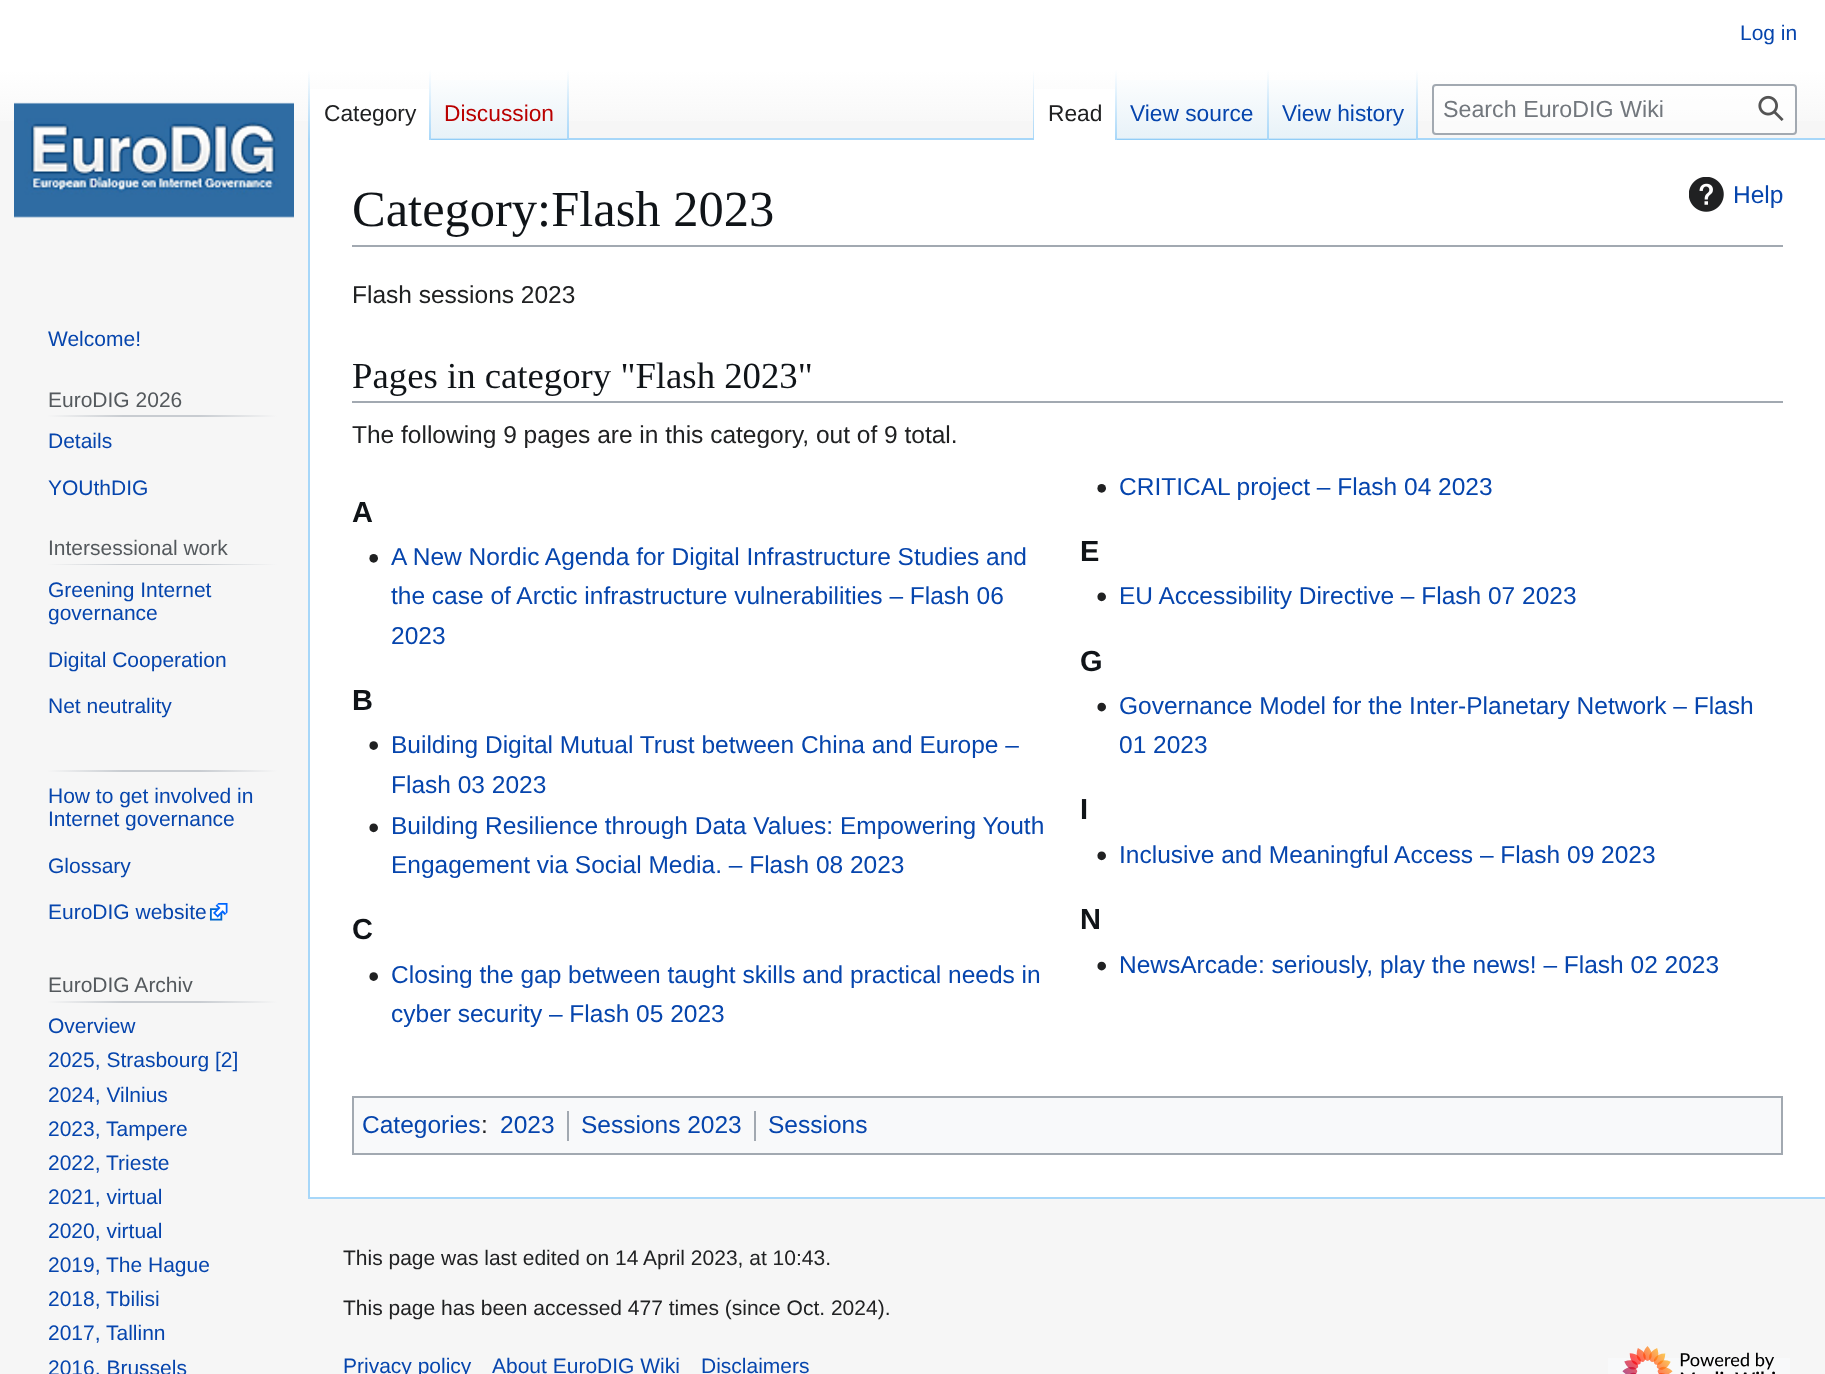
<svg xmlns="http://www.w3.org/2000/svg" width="1825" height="1374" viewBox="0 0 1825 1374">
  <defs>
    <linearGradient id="g1" gradientUnits="userSpaceOnUse" x1="913" y1="0" x2="913" y2="140"><stop offset="0.5" stop-color="rgb(255,255,255)"/><stop offset="1" stop-color="rgb(246,246,246)"/></linearGradient>
    <linearGradient id="g2" gradientUnits="userSpaceOnUse" x1="309" y1="70" x2="309" y2="140"><stop offset="0" stop-color="rgb(167,215,249)" stop-opacity="0"/><stop offset="1" stop-color="rgb(167,215,249)"/></linearGradient>
    <linearGradient id="g3" gradientUnits="userSpaceOnUse" x1="430" y1="70" x2="430" y2="140"><stop offset="0" stop-color="rgb(255,255,255)"/><stop offset="1" stop-color="rgb(167,215,249)"/></linearGradient>
    <linearGradient id="g4" gradientUnits="userSpaceOnUse" x1="500" y1="140" x2="500" y2="70"><stop offset="0" stop-color="rgb(119,193,246)"/><stop offset="0.03" stop-color="rgb(232,242,248)"/><stop offset="1" stop-color="rgb(255,255,255)"/></linearGradient>
    <linearGradient id="g5" gradientUnits="userSpaceOnUse" x1="568" y1="70" x2="568" y2="140"><stop offset="0" stop-color="rgb(167,215,249)" stop-opacity="0"/><stop offset="1" stop-color="rgb(167,215,249)"/></linearGradient>
    <linearGradient id="g6" gradientUnits="userSpaceOnUse" x1="1033" y1="70" x2="1033" y2="140"><stop offset="0" stop-color="rgb(167,215,249)" stop-opacity="0"/><stop offset="1" stop-color="rgb(167,215,249)"/></linearGradient>
    <linearGradient id="g7" gradientUnits="userSpaceOnUse" x1="1116" y1="70" x2="1116" y2="140"><stop offset="0" stop-color="rgb(255,255,255)"/><stop offset="1" stop-color="rgb(167,215,249)"/></linearGradient>
    <linearGradient id="g8" gradientUnits="userSpaceOnUse" x1="1193" y1="140" x2="1193" y2="70"><stop offset="0" stop-color="rgb(119,193,246)"/><stop offset="0.03" stop-color="rgb(232,242,248)"/><stop offset="1" stop-color="rgb(255,255,255)"/></linearGradient>
    <linearGradient id="g9" gradientUnits="userSpaceOnUse" x1="1268" y1="70" x2="1268" y2="140"><stop offset="0" stop-color="rgb(167,215,249)" stop-opacity="0"/><stop offset="1" stop-color="rgb(167,215,249)"/></linearGradient>
    <linearGradient id="g10" gradientUnits="userSpaceOnUse" x1="1343" y1="140" x2="1343" y2="70"><stop offset="0" stop-color="rgb(119,193,246)"/><stop offset="0.03" stop-color="rgb(232,242,248)"/><stop offset="1" stop-color="rgb(255,255,255)"/></linearGradient>
    <linearGradient id="g11" gradientUnits="userSpaceOnUse" x1="1417" y1="70" x2="1417" y2="140"><stop offset="0" stop-color="rgb(167,215,249)" stop-opacity="0"/><stop offset="1" stop-color="rgb(167,215,249)"/></linearGradient>
    <linearGradient id="g12" gradientUnits="userSpaceOnUse" x1="47" y1="416" x2="277" y2="416"><stop offset="0" stop-color="rgb(246,246,246)"/><stop offset="0.33" stop-color="rgb(200,204,209)"/><stop offset="0.66" stop-color="rgb(200,204,209)"/><stop offset="1" stop-color="rgb(246,246,246)"/></linearGradient>
    <linearGradient id="g13" gradientUnits="userSpaceOnUse" x1="47" y1="564" x2="277" y2="564"><stop offset="0" stop-color="rgb(246,246,246)"/><stop offset="0.33" stop-color="rgb(200,204,209)"/><stop offset="0.66" stop-color="rgb(200,204,209)"/><stop offset="1" stop-color="rgb(246,246,246)"/></linearGradient>
    <linearGradient id="g14" gradientUnits="userSpaceOnUse" x1="47" y1="771" x2="277" y2="771"><stop offset="0" stop-color="rgb(246,246,246)"/><stop offset="0.33" stop-color="rgb(200,204,209)"/><stop offset="0.66" stop-color="rgb(200,204,209)"/><stop offset="1" stop-color="rgb(246,246,246)"/></linearGradient>
    <linearGradient id="g15" gradientUnits="userSpaceOnUse" x1="47" y1="1002" x2="277" y2="1002"><stop offset="0" stop-color="rgb(246,246,246)"/><stop offset="0.33" stop-color="rgb(200,204,209)"/><stop offset="0.66" stop-color="rgb(200,204,209)"/><stop offset="1" stop-color="rgb(246,246,246)"/></linearGradient>
  </defs>
  <rect width="100%" height="100%" fill="rgb(246,246,246)"/>
  <rect x="0" y="0" width="1825" height="121" fill="url(#g1)"/>
  <text x="1740" y="40" font-family="Liberation Sans" font-size="21" fill="rgb(6,69,173)">Log in</text>
  <rect x="308" y="1197" width="1517" height="2" fill="rgb(167,215,249)"/>
  <rect x="308" y="138" width="2" height="1061" fill="rgb(167,215,249)"/>
  <rect x="308" y="70" width="2" height="70" fill="url(#g2)"/>
  <rect x="310" y="89" width="119" height="51" fill="rgb(255,255,255)"/>
  <rect x="429" y="70" width="2" height="70" fill="url(#g3)"/>
  <text x="324" y="121" font-family="Liberation Sans" font-size="22.75" fill="rgb(32,33,34)">Category</text>
  <rect x="431" y="80" width="138" height="60" fill="url(#g4)"/>
  <rect x="567" y="70" width="2" height="70" fill="url(#g5)"/>
  <text x="444" y="121" font-family="Liberation Sans" font-size="22.75" fill="rgb(186,0,0)">Discussion</text>
  <rect x="569" y="138" width="1256" height="2" fill="rgb(167,215,249)"/>
  <rect x="1033" y="70" width="1" height="70" fill="url(#g6)"/>
  <rect x="1034" y="89" width="81" height="51" fill="rgb(255,255,255)"/>
  <rect x="1115" y="70" width="2" height="70" fill="url(#g7)"/>
  <text x="1048" y="121" font-family="Liberation Sans" font-size="22.75" fill="rgb(32,33,34)">Read</text>
  <rect x="1117" y="80" width="152" height="60" fill="url(#g8)"/>
  <rect x="1267" y="70" width="2" height="70" fill="url(#g9)"/>
  <text x="1130" y="121" font-family="Liberation Sans" font-size="22.75" fill="rgb(6,69,173)">View source</text>
  <rect x="1269" y="80" width="149" height="60" fill="url(#g10)"/>
  <rect x="1416" y="70" width="2" height="70" fill="url(#g11)"/>
  <text x="1282" y="121" font-family="Liberation Sans" font-size="22.75" fill="rgb(6,69,173)">View history</text>
  <rect x="1433" y="85" width="363" height="49" rx="3" fill="rgba(255,255,255,0.5)" stroke="rgb(162,169,177)" stroke-width="2"/>
  <text x="1443" y="117" font-family="Liberation Sans" font-size="23.25" fill="rgb(114,119,125)">Search EuroDIG Wiki</text>
  <image x="1758" y="95" width="26" height="26" href="pic1.png"/>
  <image x="14" y="102" width="280" height="116" href="pic2.png"/>
  <text x="48" y="346" font-family="Liberation Sans" font-size="21" fill="rgb(6,69,173)">Welcome!</text>
  <rect x="47" y="415" width="230" height="2" fill="url(#g12)"/>
  <text x="48" y="407" font-family="Liberation Sans" font-size="21" fill="rgb(84,89,93)">EuroDIG 2026</text>
  <g font-family="Liberation Sans" font-size="21" fill="rgb(6,69,173)">
    <text x="48" y="448">Details</text>
    <text x="48" y="495">YOUthDIG</text>
  </g>
  <rect x="47" y="564" width="230" height="1" fill="url(#g13)"/>
  <text x="48" y="555" font-family="Liberation Sans" font-size="21" fill="rgb(84,89,93)">Intersessional work</text>
  <g font-family="Liberation Sans" font-size="21" fill="rgb(6,69,173)">
    <text>
      <tspan x="48" y="597">Greening Internet</tspan>
      <tspan x="48" y="620">governance</tspan>
    </text>
    <text x="48" y="667">Digital Cooperation</text>
    <text x="48" y="713">Net neutrality</text>
  </g>
  <rect x="47" y="770" width="230" height="2" fill="url(#g14)"/>
  <g font-family="Liberation Sans" font-size="21" fill="rgb(6,69,173)">
    <text>
      <tspan x="48" y="803">How to get involved in</tspan>
      <tspan x="48" y="826">Internet governance</tspan>
    </text>
    <text x="48" y="873">Glossary</text>
    <text x="48" y="919">EuroDIG website</text>
  </g>
  <image x="209" y="903" width="19" height="18" href="pic3.png"/>
  <rect x="47" y="1001" width="230" height="2" fill="url(#g15)"/>
  <text x="48" y="992" font-family="Liberation Sans" font-size="21" fill="rgb(84,89,93)">EuroDIG Archiv</text>
  <g font-family="Liberation Sans" font-size="21" fill="rgb(6,69,173)">
    <text>
      <tspan x="48" y="1033">Overview</tspan>
      <tspan x="48" y="1067">2025, Strasbourg [2]</tspan>
      <tspan x="48" y="1102">2024, Vilnius</tspan>
      <tspan x="48" y="1136">2023, Tampere</tspan>
      <tspan x="48" y="1170">2022, Trieste</tspan>
      <tspan x="48" y="1204">2021, virtual</tspan>
      <tspan x="48" y="1238">2020, virtual</tspan>
      <tspan x="48" y="1272">2019, The Hague</tspan>
      <tspan x="48" y="1306">2018, Tbilisi</tspan>
      <tspan x="48" y="1340">2017, Tallinn</tspan>
      <tspan x="48" y="1375">2016, Brussels</tspan>
    </text>
  </g>
  <rect x="310" y="140" width="1515" height="1057" fill="rgb(255,255,255)"/>
  <rect x="352" y="245" width="1431" height="2" fill="rgb(162,169,177)"/>
  <text x="352" y="226" font-family="Liberation Serif" font-size="50.5" fill="rgb(16,20,24)">Category:Flash 2023</text>
  <image x="1689" y="177" width="35" height="35" href="pic4.png"/>
  <text x="1733" y="203" font-family="Liberation Sans" font-size="24.5" fill="rgb(6,69,173)">Help</text>
  <text x="352" y="303" font-family="Liberation Sans" font-size="24.5" fill="rgb(32,33,34)">Flash sessions 2023</text>
  <rect x="352" y="401" width="1431" height="2" fill="rgb(162,169,177)"/>
  <text x="352" y="388" font-family="Liberation Serif" font-size="36.75" fill="rgb(16,20,24)">Pages in category "Flash 2023"</text>
  <text x="352" y="443" font-family="Liberation Sans" font-size="24.5" fill="rgb(32,33,34)">The following 9 pages are in this category, out of 9 total.</text>
  <text x="352" y="939" font-family="Liberation Sans" font-size="29" font-weight="bold" fill="rgb(16,20,24)">C</text>
  <image x="1097" y="484" width="9" height="9" href="pic5.png"/>
  <text x="1119" y="495" font-family="Liberation Sans" font-size="24.5" fill="rgb(6,69,173)">CRITICAL project – Flash 04 2023</text>
  <image x="369" y="972" width="9" height="9" href="pic6.png"/>
  <g font-family="Liberation Sans" font-size="24.5" fill="rgb(6,69,173)">
    <text>
      <tspan x="391" y="983">Closing the gap between taught skills and practical needs in</tspan>
      <tspan x="391" y="1022">cyber security – Flash 05 2023</tspan>
    </text>
  </g>
  <text x="352" y="522" font-family="Liberation Sans" font-size="29" font-weight="bold" fill="rgb(16,20,24)">A</text>
  <image x="369" y="554" width="9" height="9" href="pic5.png"/>
  <g font-family="Liberation Sans" font-size="24.5" fill="rgb(6,69,173)">
    <text>
      <tspan x="391" y="565">A New Nordic Agenda for Digital Infrastructure Studies and</tspan>
      <tspan x="391" y="604">the case of Arctic infrastructure vulnerabilities – Flash 06</tspan>
      <tspan x="391" y="644">2023</tspan>
    </text>
  </g>
  <text x="1080" y="561" font-family="Liberation Sans" font-size="29" font-weight="bold" fill="rgb(16,20,24)">E</text>
  <image x="1097" y="592" width="9" height="10" href="pic7.png"/>
  <text x="1119" y="604" font-family="Liberation Sans" font-size="24.5" fill="rgb(6,69,173)">EU Accessibility Directive – Flash 07 2023</text>
  <text x="352" y="710" font-family="Liberation Sans" font-size="29" font-weight="bold" fill="rgb(16,20,24)">B</text>
  <image x="369" y="741" width="9" height="9" href="pic6.png"/>
  <g font-family="Liberation Sans" font-size="24.5" fill="rgb(6,69,173)">
    <text>
      <tspan x="391" y="753">Building Digital Mutual Trust between China and Europe –</tspan>
      <tspan x="391" y="793">Flash 03 2023</tspan>
    </text>
  </g>
  <image x="369" y="823" width="9" height="10" href="pic7.png"/>
  <g font-family="Liberation Sans" font-size="24.5" fill="rgb(6,69,173)">
    <text>
      <tspan x="391" y="834">Building Resilience through Data Values: Empowering Youth</tspan>
      <tspan x="391" y="873">Engagement via Social Media. – Flash 08 2023</tspan>
    </text>
  </g>
  <text x="1080" y="671" font-family="Liberation Sans" font-size="29" font-weight="bold" fill="rgb(16,20,24)">G</text>
  <image x="1097" y="702" width="9" height="10" href="pic8.png"/>
  <g font-family="Liberation Sans" font-size="24.5" fill="rgb(6,69,173)">
    <text>
      <tspan x="1119" y="714">Governance Model for the Inter-Planetary Network – Flash</tspan>
      <tspan x="1119" y="753">01 2023</tspan>
    </text>
  </g>
  <text x="1080" y="819" font-family="Liberation Sans" font-size="29" font-weight="bold" fill="rgb(16,20,24)">I</text>
  <image x="1097" y="851" width="9" height="10" href="pic7.png"/>
  <text x="1119" y="863" font-family="Liberation Sans" font-size="24.5" fill="rgb(6,69,173)">Inclusive and Meaningful Access – Flash 09 2023</text>
  <text x="1080" y="929" font-family="Liberation Sans" font-size="29" font-weight="bold" fill="rgb(16,20,24)">N</text>
  <image x="1097" y="961" width="9" height="10" href="pic8.png"/>
  <text x="1119" y="973" font-family="Liberation Sans" font-size="24.5" fill="rgb(6,69,173)">NewsArcade: seriously, play the news! – Flash 02 2023</text>
  <rect x="353" y="1097" width="1429" height="57" fill="rgb(248,249,250)" stroke="rgb(162,169,177)" stroke-width="2"/>
  <text x="362" y="1133" font-family="Liberation Sans" font-size="24.5" fill="rgb(6,69,173)">Categories</text>
  <text x="481" y="1133" font-family="Liberation Sans" font-size="24.5" fill="rgb(32,33,34)">:</text>
  <text x="500" y="1133" font-family="Liberation Sans" font-size="24.5" fill="rgb(6,69,173)">2023</text>
  <rect x="567" y="1111" width="2" height="30" fill="rgb(162,169,177)"/>
  <text x="581" y="1133" font-family="Liberation Sans" font-size="24.5" fill="rgb(6,69,173)">Sessions 2023</text>
  <rect x="754" y="1111" width="2" height="30" fill="rgb(162,169,177)"/>
  <text x="768" y="1133" font-family="Liberation Sans" font-size="24.5" fill="rgb(6,69,173)">Sessions</text>
  <g font-family="Liberation Sans" font-size="21" fill="rgb(32,33,34)">
    <text x="343" y="1265">This page was last edited on 14 April 2023, at 10:43.</text>
    <text x="343" y="1315">This page has been accessed 477 times (since Oct. 2024).</text>
  </g>
  <g font-family="Liberation Sans" font-size="21" fill="rgb(6,69,173)">
    <text x="343" y="1373">Privacy policy</text>
    <text x="492" y="1373">About EuroDIG Wiki</text>
    <text x="701" y="1373">Disclaimers</text>
  </g>
  <rect x="1608" y="1358" width="182" height="16" fill="rgb(248,249,250)"/>
  <image x="1622" y="1346" width="153" height="28" href="pic9.png"/>
</svg>
